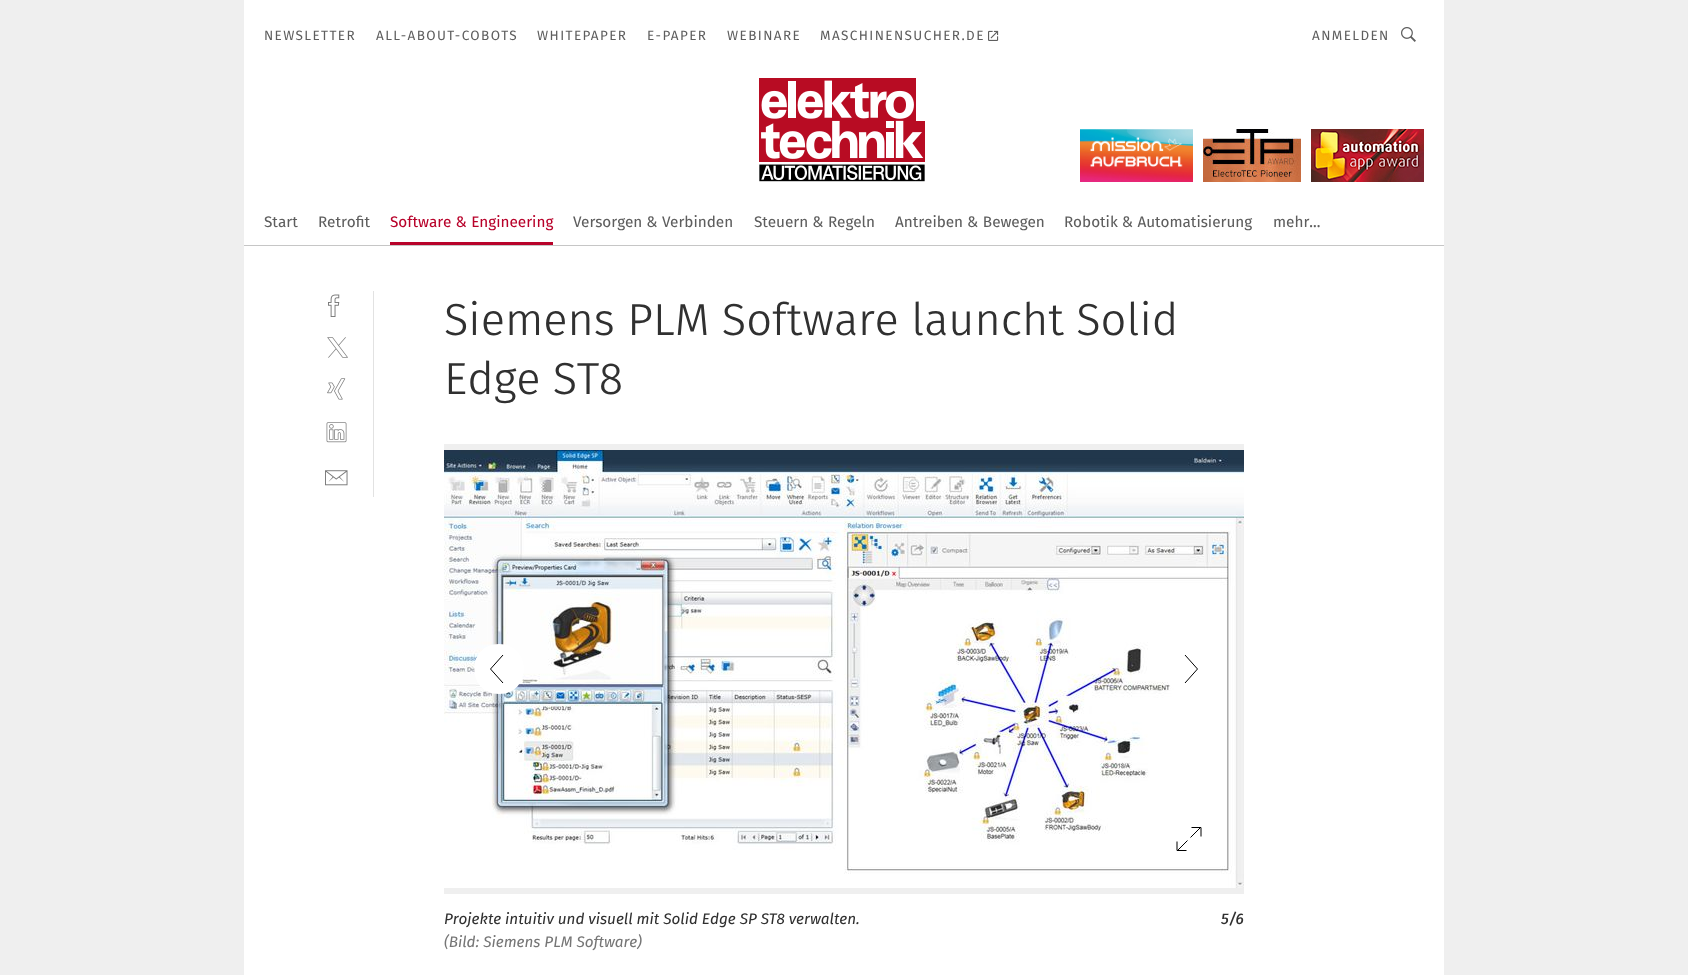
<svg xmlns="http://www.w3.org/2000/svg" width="1688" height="975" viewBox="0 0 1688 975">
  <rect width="100%" height="100%" fill="rgb(239,239,239)"/>
  <rect x="244" y="0" width="1200" height="975" fill="rgb(255,255,255)"/>
  <rect x="244" y="245" width="1200" height="1" fill="rgb(198,198,198)"/>
  <g font-family="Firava" font-size="13.5" letter-spacing="1.4" fill="rgb(94,94,94)">
    <text x="264" y="40">NEWSLETTER</text>
    <text x="376" y="40">ALL-ABOUT-COBOTS</text>
    <text x="537" y="40">WHITEPAPER</text>
    <text x="647" y="40">E-PAPER</text>
    <text x="727" y="40">WEBINARE</text>
    <text x="820" y="40">MASCHINENSUCHER.DE</text>
  </g>
  <image x="988" y="30" width="11" height="11" href="pic1.png"/>
  <text x="1312" y="40" font-family="Firava" font-size="13.5" letter-spacing="1.4" fill="rgb(94,94,94)">ANMELDEN</text>
  <image x="1401" y="27" width="15" height="15" href="pic2.png"/>
  <image x="759" y="78" width="166" height="104" href="pic3.png"/>
  <image x="1080" y="129" width="113" height="53" href="pic4.png"/>
  <image x="1203" y="129" width="98" height="53" href="pic5.png"/>
  <image x="1311" y="129" width="113" height="53" href="pic6.png"/>
  <g font-family="'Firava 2'" font-size="15.3" fill="rgb(94,94,94)">
    <text x="264" y="227">Start</text>
    <text x="318" y="227">Retrofit</text>
  </g>
  <rect x="390" y="242" width="163" height="3" fill="rgb(184,2,42)"/>
  <text x="390" y="227" font-family="'Firava 2'" font-size="15.3" fill="rgb(184,2,42)">Software &amp; Engineering</text>
  <g font-family="'Firava 2'" font-size="15.3" fill="rgb(94,94,94)">
    <text x="573" y="227">Versorgen &amp; Verbinden</text>
    <text x="754" y="227">Steuern &amp; Regeln</text>
    <text x="895" y="227">Antreiben &amp; Bewegen</text>
    <text x="1064" y="227">Robotik &amp; Automatisierung</text>
    <text x="1273" y="227">mehr...</text>
  </g>
  <rect x="373" y="291" width="1" height="206" fill="rgb(226,226,226)"/>
  <image x="328" y="294" width="12" height="23" href="pic7.png"/>
  <image x="327" y="337" width="21" height="21" href="pic8.png"/>
  <image x="327" y="378" width="19" height="22" href="pic9.png"/>
  <image x="326" y="422" width="21" height="21" href="pic10.png"/>
  <image x="325" y="470" width="23" height="16" href="pic11.png"/>
  <g font-family="Firava" font-size="45" font-weight="300" fill="rgb(48,48,48)">
    <text>
      <tspan x="444" y="335">Siemens PLM Software launcht Solid</tspan>
      <tspan x="444" y="394">Edge ST8</tspan>
    </text>
  </g>
  <rect x="444" y="444" width="800" height="450" fill="rgb(239,239,239)"/>
  <image x="444" y="450" width="800" height="438" href="pic12.png"/>
  <path d="M499 694C532 694 532 644 499 644C466 644 466 694 499 694" fill="rgb(255,255,255)"/>
  <path d="M503 655L490.5 669L503 683" fill="none" stroke="rgb(0,0,0)"/>
  <path d="M1189 644C1156 644 1156 694 1189 694C1222 694 1222 644 1189 644" fill="rgb(255,255,255)"/>
  <path d="M1185 683L1197.5 669L1185 655" fill="none" stroke="rgb(0,0,0)"/>
  <path d="M1201 836.5V827.5H1191.5M1177 841.5V850.5H1186.5M1200.5 827.5L1190.5 837.5M1187.5 840.5L1177.5 850.5" fill="none" stroke="rgb(0,0,0)"/>
  <text x="444" y="924" font-family="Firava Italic" font-size="15.3" font-style="italic" fill="rgb(48,48,48)">Projekte intuitiv und visuell mit Solid Edge SP ST8 verwalten.</text>
  <text x="444" y="947" font-family="Firava Italic" font-size="15.3" font-style="italic" fill="rgb(118,118,118)">(Bild: Siemens PLM Software)</text>
  <text x="1221" y="924" font-family="Firava Italic" font-size="15.3" font-weight="500" font-style="italic" fill="rgb(48,48,48)">5/6</text>
</svg>
